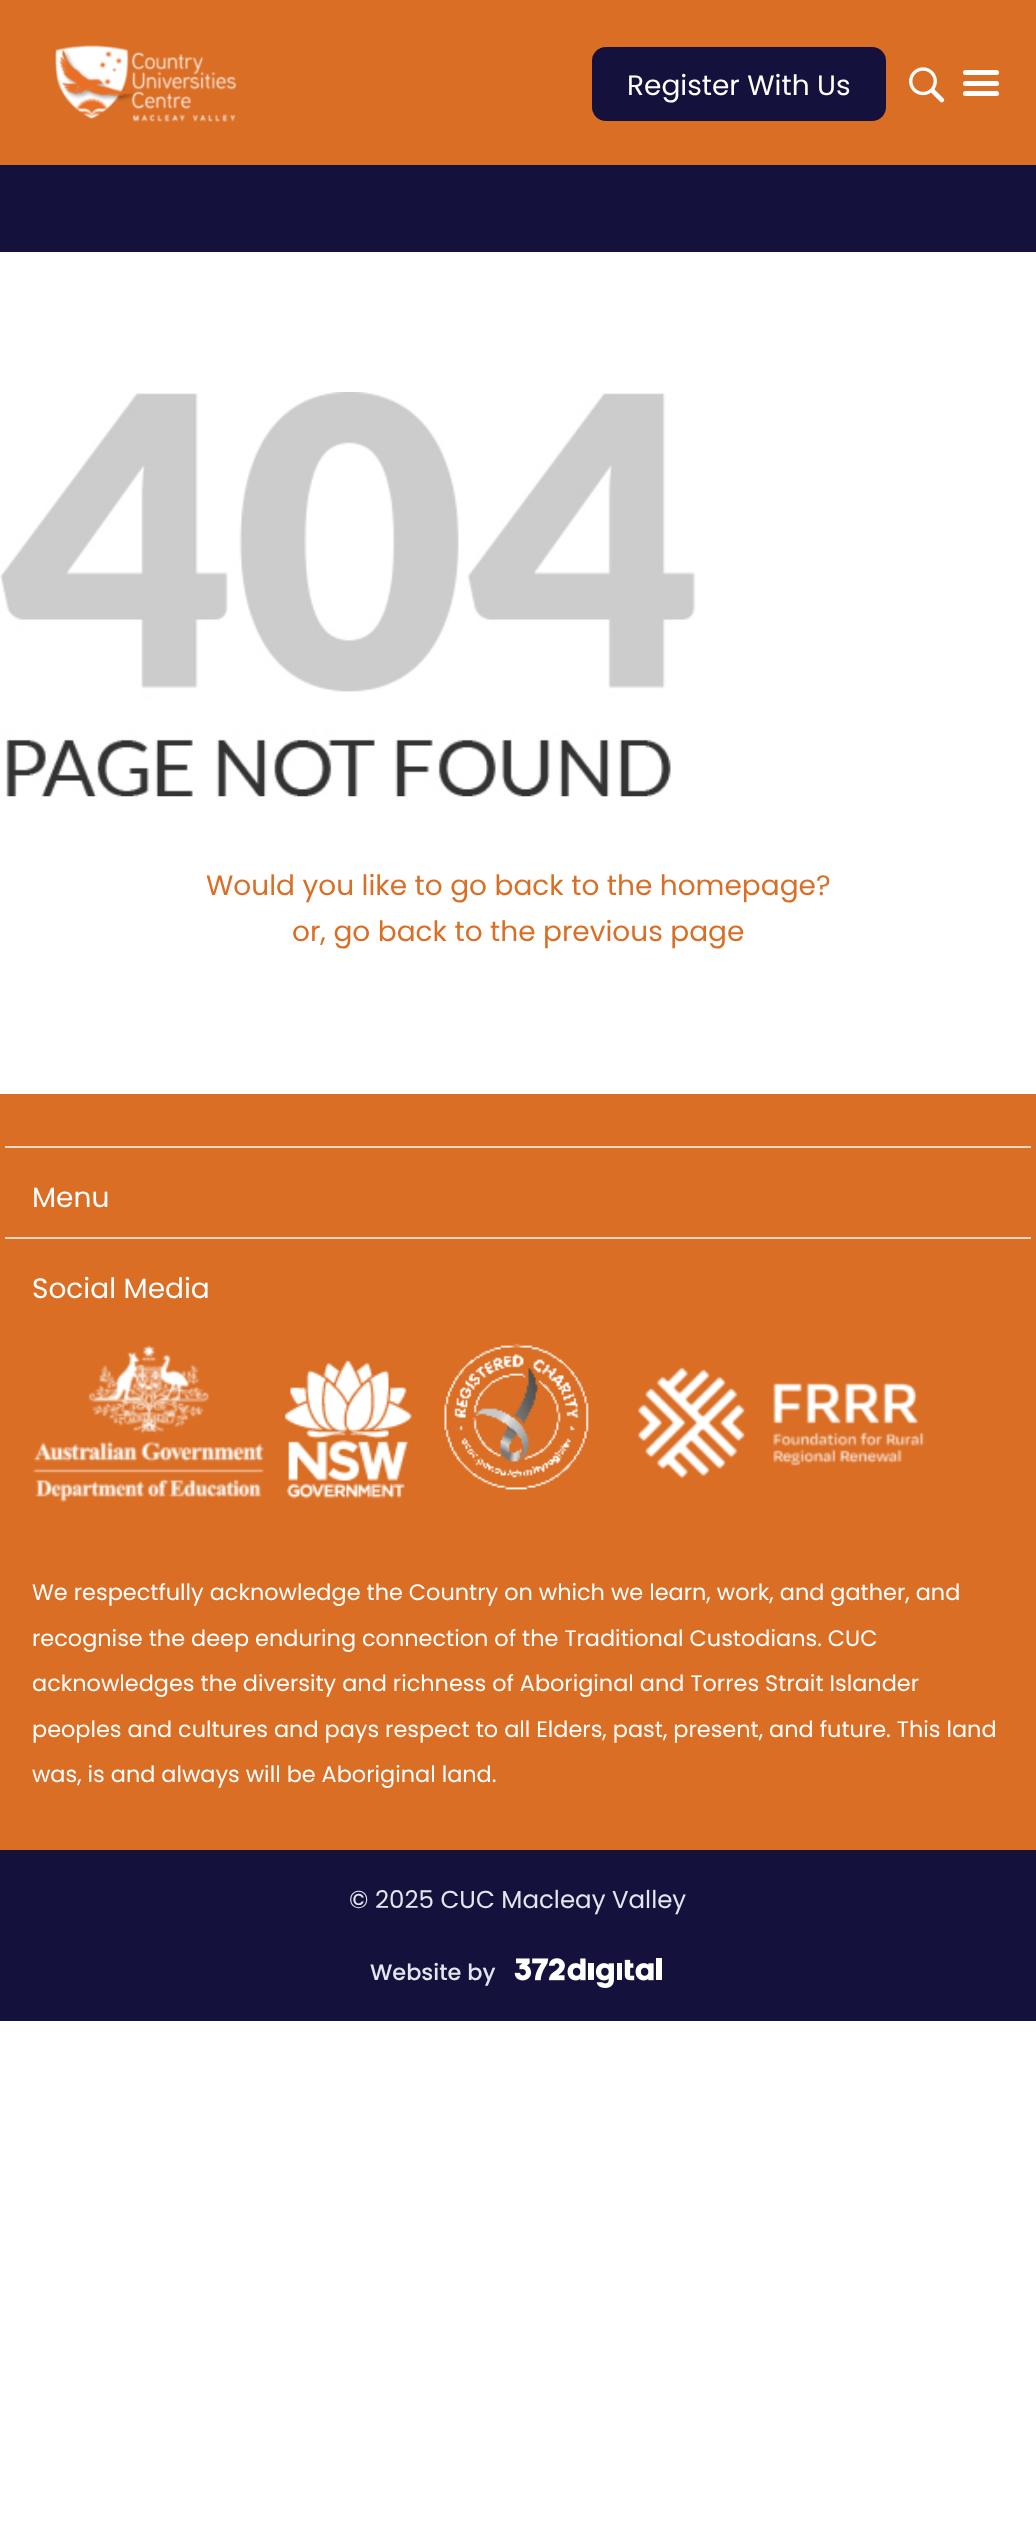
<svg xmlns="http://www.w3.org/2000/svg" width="1036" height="2540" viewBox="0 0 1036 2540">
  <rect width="100%" height="100%" fill="rgb(255,255,255)"/>
  <rect x="0" y="0" width="1036" height="165" fill="rgb(218,110,37)"/>
  <image x="55" y="45" width="182" height="77" href="pic1.png"/>
  <rect x="592" y="47" width="294" height="74" rx="14" fill="rgb(20,18,61)"/>
  <text x="627" y="95" font-family="Poppins" font-size="28" fill="rgb(255,255,255)">Register With Us</text>
  <image x="909" y="67" width="36" height="36" href="pic2.png"/>
  <rect x="963" y="70" width="36" height="5" rx="2.5" fill="rgb(255,255,255)"/>
  <rect x="963" y="81" width="36" height="5" rx="2.5" fill="rgb(255,255,255)"/>
  <rect x="963" y="91" width="36" height="5" rx="2.5" fill="rgb(255,255,255)"/>
  <rect x="0" y="165" width="1036" height="87" fill="rgb(20,18,61)"/>
  <image x="0" y="392" width="696" height="405" href="pic3.png"/>
  <g font-family="Poppins" font-size="28" fill="rgb(218,110,37)">
    <text x="206" y="895">Would you like to go back to the homepage?</text>
    <text x="292" y="941">or, go back to the previous page</text>
  </g>
  <rect x="0" y="1094" width="1036" height="756" fill="rgb(218,110,37)"/>
  <rect x="5" y="1146" width="1026" height="2" fill="rgb(244,215,195)"/>
  <text x="32" y="1207" font-family="Poppins" font-size="28" fill="rgb(255,255,255)">Menu</text>
  <rect x="5" y="1237" width="1026" height="2" fill="rgb(244,215,195)"/>
  <text x="32" y="1298" font-family="Poppins" font-size="28" fill="rgb(255,255,255)">Social Media</text>
  <image x="33" y="1345" width="232" height="157" href="pic4.png"/>
  <image x="284" y="1359" width="128" height="140" href="pic5.png"/>
  <image x="444" y="1343" width="145" height="147" href="pic6.png"/>
  <image x="637" y="1366" width="288" height="113" href="pic7.png"/>
  <g font-family="Poppins" font-size="22.4" fill="rgb(255,255,255)">
    <text x="32" y="1600">We respectfully acknowledge the Country on which we learn, work, and gather, and</text>
    <text x="32" y="1646">recognise the deep enduring connection of the Traditional Custodians. CUC</text>
    <text x="32" y="1691">acknowledges the diversity and richness of Aboriginal and Torres Strait Islander</text>
    <text x="32" y="1737">peoples and cultures and pays respect to all Elders, past, present, and future. This land</text>
    <text x="32" y="1782">was, is and always will be Aboriginal land.</text>
  </g>
  <rect x="0" y="1850" width="1036" height="171" fill="rgb(20,18,61)"/>
  <text x="349" y="1908" font-family="Poppins" font-size="24.5" fill="rgb(226,230,238)">© 2025 CUC Macleay Valley</text>
  <text x="370" y="1980" font-family="Poppins" font-size="22.4" font-weight="500" fill="rgb(226,230,238)">Website by</text>
  <image x="514" y="1958" width="148" height="30" href="pic8.png"/>
</svg>
